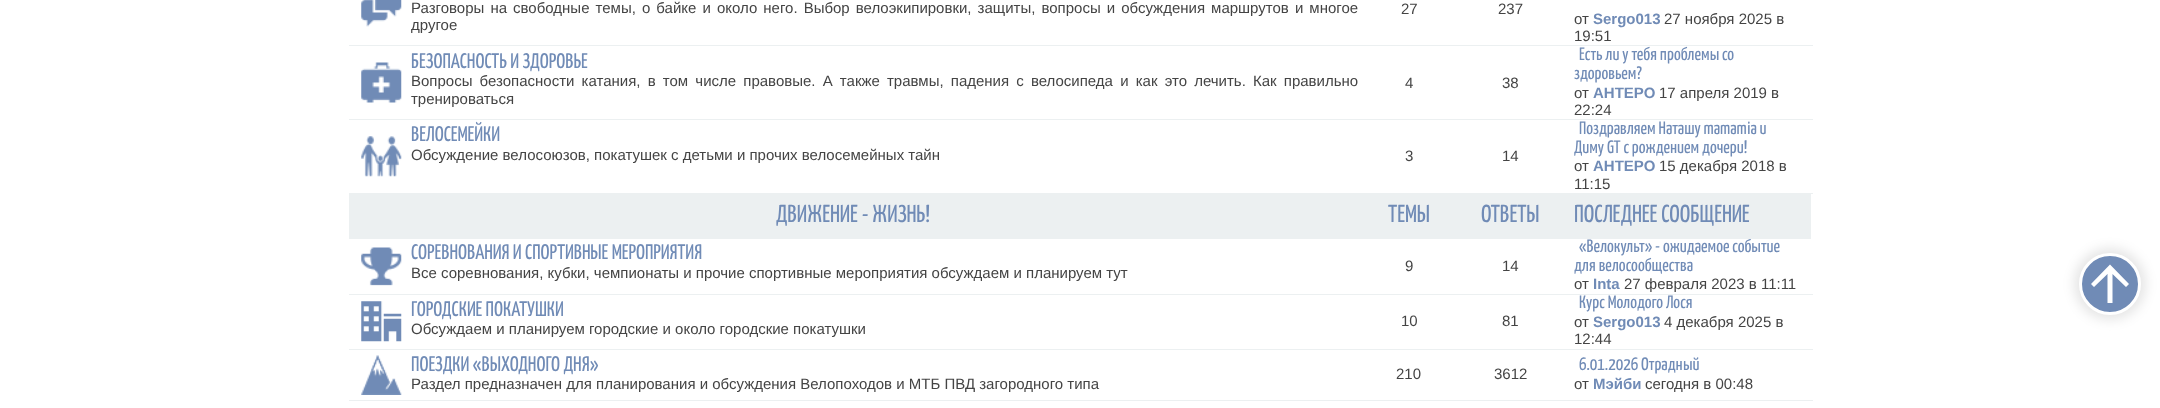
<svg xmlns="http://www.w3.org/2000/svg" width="2160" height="408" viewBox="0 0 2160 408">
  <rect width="100%" height="100%" fill="rgb(255,255,255)"/>
  <rect x="349" y="45" width="1464" height="1" fill="rgb(236,240,241)"/>
  <image x="361" y="0" width="41" height="27" href="pic1.png"/>
  <g font-family="Liberation Sans" font-size="15" fill="rgb(68,68,68)">
    <text>
      <tspan x="411" y="13" word-spacing="1.9">Разговоры на свободные темы, о байке и около него. Выбор велоэкипировки, защиты, вопросы и обсуждения маршрутов и многое</tspan>
      <tspan x="411" y="30">другое</tspan>
    </text>
    <text x="1401" y="14">27</text>
    <text x="1498" y="14">237</text>
    <text x="1574" y="24">от</text>
  </g>
  <text x="1593" y="24" font-family="Liberation Sans" font-size="15" font-weight="bold" fill="rgb(112,139,182)">Sergo013</text>
  <g font-family="Liberation Sans" font-size="15" fill="rgb(68,68,68)">
    <text x="1664" y="24">27 ноября 2025 в</text>
    <text x="1574" y="41">19:51</text>
  </g>
  <rect x="349" y="119" width="1464" height="1" fill="rgb(236,240,241)"/>
  <image x="361" y="62" width="41" height="41" href="pic2.png"/>
  <text x="411" y="68" font-family="Yanone Kaffeesatz" font-size="21" fill="rgb(112,139,182)">БЕЗОПАСНОСТЬ И ЗДОРОВЬЕ</text>
  <g font-family="Liberation Sans" font-size="15" fill="rgb(68,68,68)">
    <text>
      <tspan x="411" y="86" word-spacing="3">Вопросы безопасности катания, в том числе правовые. А также травмы, падения с велосипеда и как это лечить. Как правильно</tspan>
      <tspan x="411" y="104">тренироваться</tspan>
    </text>
    <text x="1405" y="88">4</text>
    <text x="1502" y="88">38</text>
  </g>
  <g font-family="Yanone Kaffeesatz" font-size="18" fill="rgb(112,139,182)">
    <text x="1579" y="60">Есть ли у тебя проблемы со</text>
    <text x="1574" y="79">здоровьем?</text>
  </g>
  <text x="1574" y="98" font-family="Liberation Sans" font-size="15" fill="rgb(68,68,68)">от</text>
  <text x="1593" y="98" font-family="Liberation Sans" font-size="15" font-weight="bold" fill="rgb(112,139,182)">AHTEPO</text>
  <g font-family="Liberation Sans" font-size="15" fill="rgb(68,68,68)">
    <text x="1659" y="98">17 апреля 2019 в</text>
    <text x="1574" y="115">22:24</text>
  </g>
  <rect x="349" y="193" width="1464" height="1" fill="rgb(236,240,241)"/>
  <text x="411" y="141" font-family="Yanone Kaffeesatz" font-size="21" fill="rgb(112,139,182)">ВЕЛОСЕМЕЙКИ</text>
  <image x="361" y="136" width="41" height="41" href="pic3.png"/>
  <g font-family="Liberation Sans" font-size="15" fill="rgb(68,68,68)">
    <text x="411" y="160">Обсуждение велосоюзов, покатушек с детьми и прочих велосемейных тайн</text>
    <text x="1405" y="161">3</text>
    <text x="1502" y="161">14</text>
  </g>
  <g font-family="Yanone Kaffeesatz" font-size="18" fill="rgb(112,139,182)">
    <text x="1579" y="134">Поздравляем Наташу mamamia и</text>
    <text x="1574" y="153">Диму GT с рождением дочери!</text>
  </g>
  <text x="1574" y="171" font-family="Liberation Sans" font-size="15" fill="rgb(68,68,68)">от</text>
  <text x="1593" y="171" font-family="Liberation Sans" font-size="15" font-weight="bold" fill="rgb(112,139,182)">AHTEPO</text>
  <g font-family="Liberation Sans" font-size="15" fill="rgb(68,68,68)">
    <text x="1659" y="171">15 декабря 2018 в</text>
    <text x="1574" y="189">11:15</text>
  </g>
  <text x="1579" y="252" font-family="Yanone Kaffeesatz" font-size="18" fill="rgb(112,139,182)">«Велокульт» - ожидаемое событие</text>
  <rect x="349" y="194" width="1462" height="45" fill="rgb(236,240,241)"/>
  <g font-family="Yanone Kaffeesatz" font-size="24.5" fill="rgb(112,139,182)">
    <text x="776" y="222">ДВИЖЕНИЕ - ЖИЗНЬ!</text>
    <text x="1388" y="222">ТЕМЫ</text>
    <text x="1481" y="222">ОТВЕТЫ</text>
    <text x="1574" y="222">ПОСЛЕДНЕЕ СООБЩЕНИЕ</text>
  </g>
  <rect x="349" y="294" width="1464" height="1" fill="rgb(236,240,241)"/>
  <image x="361" y="247" width="41" height="39" href="pic4.png"/>
  <text x="411" y="259" font-family="Yanone Kaffeesatz" font-size="21" fill="rgb(112,139,182)">СОРЕВНОВАНИЯ И СПОРТИВНЫЕ МЕРОПРИЯТИЯ</text>
  <g font-family="Liberation Sans" font-size="15" fill="rgb(68,68,68)">
    <text x="411" y="278">Все соревнования, кубки, чемпионаты и прочие спортивные мероприятия обсуждаем и планируем тут</text>
    <text x="1405" y="271">9</text>
    <text x="1502" y="271">14</text>
  </g>
  <text x="1574" y="271" font-family="Yanone Kaffeesatz" font-size="18" fill="rgb(112,139,182)">для велосообщества</text>
  <text x="1574" y="289" font-family="Liberation Sans" font-size="15" fill="rgb(68,68,68)">от</text>
  <text x="1593" y="289" font-family="Liberation Sans" font-size="15" font-weight="bold" fill="rgb(112,139,182)">Inta</text>
  <text x="1624" y="289" font-family="Liberation Sans" font-size="15" fill="rgb(68,68,68)">27 февраля 2023 в 11:11</text>
  <rect x="349" y="349" width="1464" height="1" fill="rgb(236,240,241)"/>
  <image x="361" y="301" width="41" height="41" href="pic5.png"/>
  <text x="411" y="316" font-family="Yanone Kaffeesatz" font-size="21" fill="rgb(112,139,182)">ГОРОДСКИЕ ПОКАТУШКИ</text>
  <g font-family="Liberation Sans" font-size="15" fill="rgb(68,68,68)">
    <text x="411" y="334">Обсуждаем и планируем городские и около городские покатушки</text>
    <text x="1401" y="326">10</text>
    <text x="1502" y="326">81</text>
  </g>
  <text x="1579" y="308" font-family="Yanone Kaffeesatz" font-size="18" fill="rgb(112,139,182)">Курс Молодого Лося</text>
  <text x="1574" y="327" font-family="Liberation Sans" font-size="15" fill="rgb(68,68,68)">от</text>
  <text x="1593" y="327" font-family="Liberation Sans" font-size="15" font-weight="bold" fill="rgb(112,139,182)">Sergo013</text>
  <g font-family="Liberation Sans" font-size="15" fill="rgb(68,68,68)">
    <text x="1664" y="327">4 декабря 2025 в</text>
    <text x="1574" y="344">12:44</text>
  </g>
  <rect x="349" y="400" width="1464" height="1" fill="rgb(236,240,241)"/>
  <image x="361" y="355" width="41" height="40" href="pic6.png"/>
  <text x="411" y="371" font-family="Yanone Kaffeesatz" font-size="21" fill="rgb(112,139,182)">ПОЕЗДКИ «ВЫХОДНОГО ДНЯ»</text>
  <g font-family="Liberation Sans" font-size="15" fill="rgb(68,68,68)">
    <text x="411" y="389">Раздел предназначен для планирования и обсуждения Велопоходов и МТБ ПВД загородного типа</text>
    <text x="1396" y="379">210</text>
    <text x="1494" y="379">3612</text>
  </g>
  <text x="1579" y="370" font-family="Yanone Kaffeesatz" font-size="18" fill="rgb(112,139,182)">6.01.2026 Отрадный</text>
  <text x="1574" y="389" font-family="Liberation Sans" font-size="15" fill="rgb(68,68,68)">от</text>
  <text x="1593" y="389" font-family="Liberation Sans" font-size="15" font-weight="bold" fill="rgb(112,139,182)">Мэйби</text>
  <text x="1645" y="389" font-family="Liberation Sans" font-size="15" fill="rgb(68,68,68)">сегодня в 00:48</text>
  <rect x="2074" y="248" width="72" height="72" rx="36" fill="rgba(0,0,0,0.1)" filter="blur(6px)"/>
  <circle cx="2110" cy="284" r="29.5" fill="rgb(112,139,182)" stroke="rgb(255,255,255)" stroke-width="3"/>
  <path d="M2091 284L2094 287L2107.5 274V303H2112.5V274L2126 287L2129 284L2110 264.5Z" fill="rgb(255,255,255)"/>
</svg>
